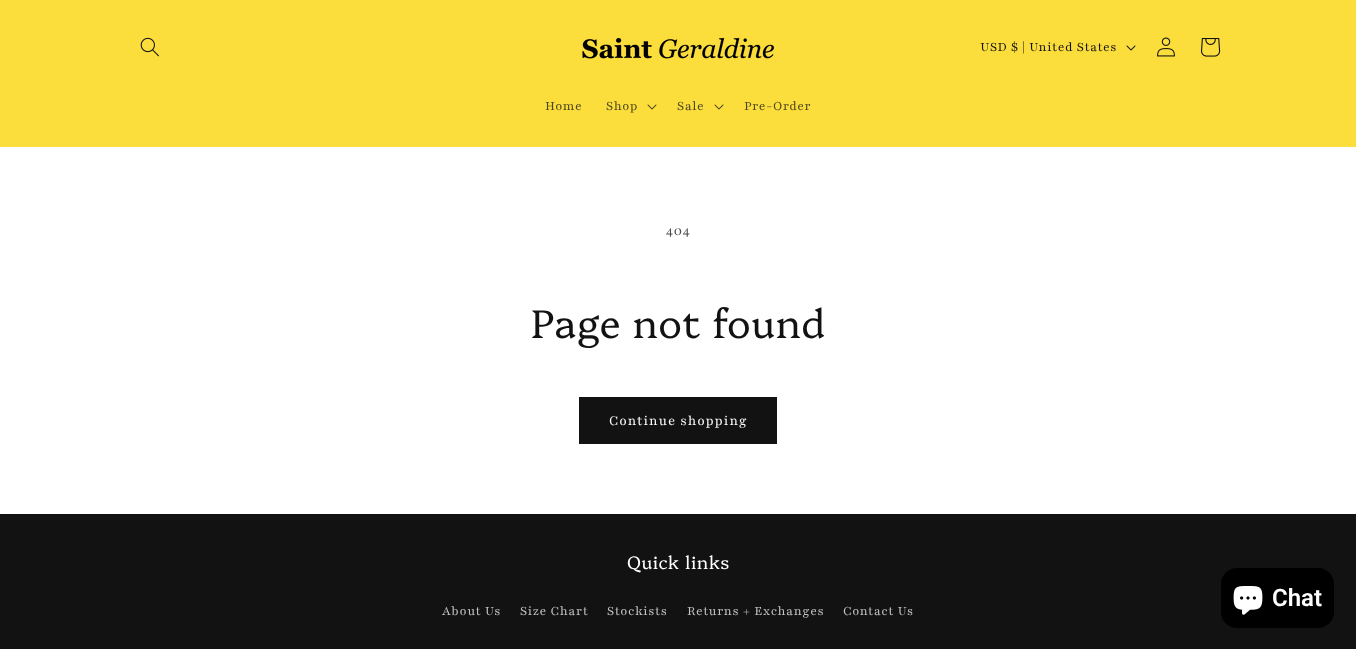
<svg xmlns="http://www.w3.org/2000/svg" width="1356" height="649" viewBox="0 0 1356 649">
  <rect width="100%" height="100%" fill="rgb(255,255,255)"/>
  <rect x="0" y="0" width="1356" height="147" fill="rgb(251,221,60)"/>
  <image x="140" y="37" width="19" height="20" href="pic1.png"/>
  <image x="582" y="37" width="193" height="22" href="pic2.png"/>
  <text x="980" y="51" font-family="'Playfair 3'" font-size="14" letter-spacing="0.6" fill="rgb(18,18,18)">USD $ | United States</text>
  <image x="1126" y="45" width="10" height="6" href="pic3.png"/>
  <image x="1157" y="37" width="18" height="20" href="pic4.png"/>
  <image x="1201" y="38" width="20" height="19" href="pic5.png"/>
  <g font-family="'Playfair 3'" font-size="14" letter-spacing="0.6" fill="rgb(76,69,29)">
    <text x="545" y="110">Home</text>
    <text x="606" y="110">Shop</text>
  </g>
  <image x="647" y="104" width="10" height="6" href="pic6.png"/>
  <text x="677" y="110" font-family="'Playfair 3'" font-size="14" letter-spacing="0.6" fill="rgb(76,69,29)">Sale</text>
  <image x="714" y="104" width="10" height="6" href="pic6.png"/>
  <text x="744" y="110" font-family="'Playfair 3'" font-size="14" letter-spacing="0.6" fill="rgb(76,69,29)">Pre-Order</text>
  <text x="666" y="235" font-family="Playfair" font-size="16" letter-spacing="0.6" fill="rgb(77,77,77)">404</text>
  <text x="531" y="338" font-family="Platypi" font-size="40" font-weight="300" letter-spacing="0.6" fill="rgb(18,18,18)">Page not found</text>
  <rect x="579" y="397" width="198" height="47" fill="rgb(18,18,18)"/>
  <text x="609" y="425" font-family="'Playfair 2'" font-size="15" letter-spacing="1" fill="rgb(255,255,255)">Continue shopping</text>
  <rect x="0" y="514" width="1356" height="135" fill="rgb(18,18,18)"/>
  <text x="627" y="569" font-family="Platypi" font-size="18" font-weight="300" letter-spacing="0.6" fill="rgb(255,255,255)">Quick links</text>
  <g font-family="'Playfair 3'" font-size="14" letter-spacing="0.6" fill="rgb(196,196,196)">
    <text x="442" y="615">About Us</text>
    <text x="520" y="615">Size Chart</text>
    <text x="607" y="615">Stockists</text>
    <text x="687" y="615">Returns + Exchanges</text>
    <text x="843" y="615">Contact Us</text>
  </g>
  <rect x="1221" y="568" width="113" height="60" rx="16" fill="rgb(0,0,0)"/>
  <image x="1233" y="586" width="30" height="29" href="pic7.png"/>
  <text x="1272" y="606" font-family="Roboto" font-size="24" font-weight="600" fill="rgb(255,255,255)">Chat</text>
</svg>
